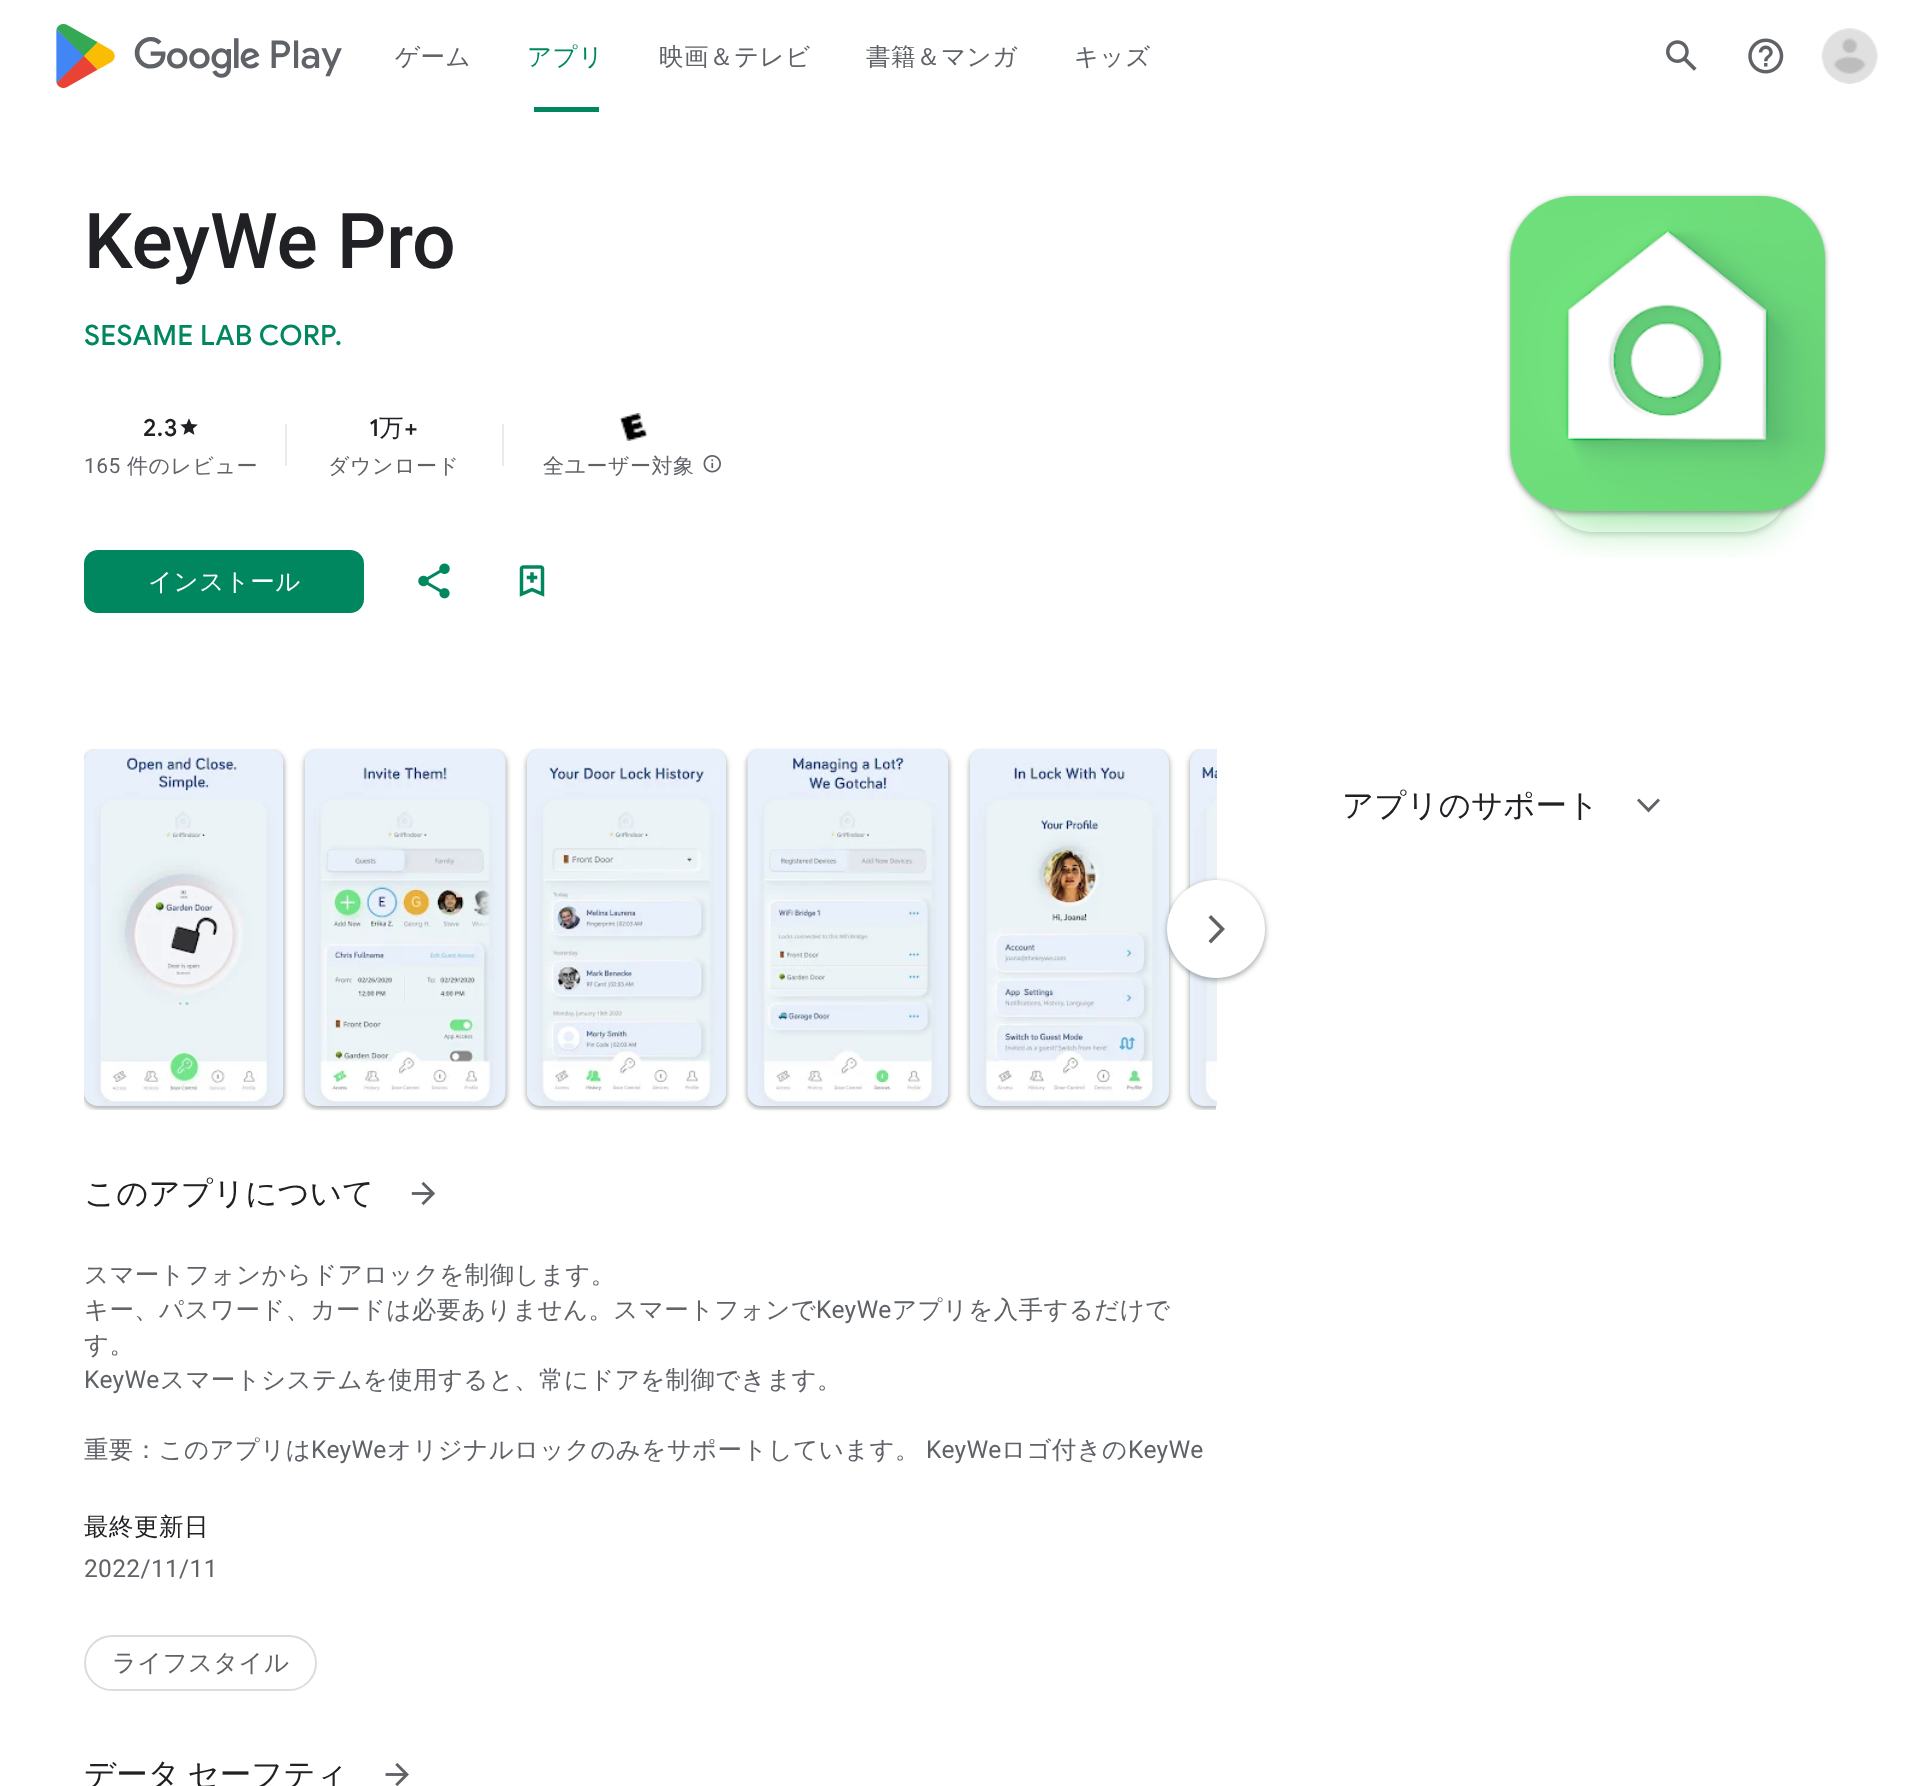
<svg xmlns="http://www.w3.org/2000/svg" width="1909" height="1786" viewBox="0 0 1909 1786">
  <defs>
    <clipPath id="clip1"><path d="M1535 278H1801V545H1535ZM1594 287H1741C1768 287 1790 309 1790 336V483C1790 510 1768 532 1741 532H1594C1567 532 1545 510 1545 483V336C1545 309 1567 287 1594 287Z" clip-rule="evenodd"/></clipPath>
    <clipPath id="clip2"><path d="M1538 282H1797V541H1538ZM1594 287H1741C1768 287 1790 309 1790 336V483C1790 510 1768 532 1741 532H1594C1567 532 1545 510 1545 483V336C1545 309 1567 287 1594 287Z" clip-rule="evenodd"/></clipPath>
    <clipPath id="clip3"><rect x="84" y="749" width="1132" height="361"/></clipPath>
  </defs>
  <rect width="100%" height="100%" fill="rgb(255,255,255)"/>
  <image x="56" y="24" width="59" height="64" href="pic1.png"/>
  <text x="133" y="68" font-family="Google Sans" font-size="38.5" font-weight="500" fill="rgb(95,99,104)">google_logo Play</text>
  <text x="395" y="65" font-family="WenQuanYi Zen Hei" font-size="24.5" font-weight="500" letter-spacing="0.5" fill="rgb(95,99,104)">ゲーム</text>
  <text x="527" y="65" font-family="WenQuanYi Zen Hei" font-size="24.5" font-weight="500" letter-spacing="0.5" fill="rgb(1,135,95)">アプリ</text>
  <rect x="534" y="107" width="65" height="5" fill="rgb(1,135,95)"/>
  <g font-family="WenQuanYi Zen Hei" font-size="24.5" font-weight="500" letter-spacing="0.5" fill="rgb(95,99,104)">
    <text x="659" y="65">映画＆テレビ</text>
    <text x="866" y="65">書籍＆マンガ</text>
    <text x="1074" y="65">キッズ</text>
  </g>
  <image x="1666" y="40" width="31" height="31" href="pic2.png"/>
  <image x="1748" y="38" width="36" height="36" href="pic3.png"/>
  <image x="1821" y="28" width="57" height="56" href="pic4.png"/>
  <text x="84" y="268" font-family="Roboto" font-size="77" font-weight="500" fill="rgb(32,33,36)">KeyWe Pro</text>
  <text x="84" y="345" font-family="Google Sans" font-size="28" font-weight="500" letter-spacing="0.2" fill="rgb(1,135,95)">SESAME LAB CORP.</text>
  <text x="143" y="436" font-family="Google Sans" font-size="24.5" font-weight="500" letter-spacing="0.5" fill="rgb(32,33,36)">2.3</text>
  <image x="180" y="418" width="18" height="17" href="pic5.png"/>
  <text x="84" y="473" font-family="Roboto" font-size="21" letter-spacing="0.5" fill="rgb(95,99,104)">165</text>
  <text x="127" y="473" font-family="WenQuanYi Zen Hei" font-size="21" font-weight="500" letter-spacing="0.5" fill="rgb(95,99,104)">件のレビュー</text>
  <rect x="285" y="424" width="2" height="42" fill="rgb(232,234,237)"/>
  <text x="369" y="436" font-family="Google Sans" font-size="24.5" font-weight="500" letter-spacing="0.5" fill="rgb(32,33,36)">1</text>
  <text x="379" y="436" font-family="WenQuanYi Zen Hei" font-size="24.5" font-weight="500" letter-spacing="0.5" fill="rgb(32,33,36)">万</text>
  <text x="404" y="436" font-family="Google Sans" font-size="24.5" font-weight="500" letter-spacing="0.5" fill="rgb(32,33,36)">+</text>
  <text x="328" y="473" font-family="WenQuanYi Zen Hei" font-size="21" font-weight="500" letter-spacing="0.5" fill="rgb(95,99,104)">ダウンロード</text>
  <rect x="502" y="424" width="2" height="42" fill="rgb(232,234,237)"/>
  <image x="619" y="413" width="29" height="28" href="pic6.png"/>
  <text x="543" y="473" font-family="WenQuanYi Zen Hei" font-size="21" font-weight="500" letter-spacing="0.5" fill="rgb(95,99,104)">全ユーザー対象</text>
  <image x="703" y="455" width="18" height="18" href="pic7.png"/>
  <g clip-path="url(#clip1)">
    <rect x="1544" y="287" width="248" height="249" rx="51" fill="rgba(158,160,161,0.15)" filter="blur(2.5px)"/>
  </g>
  <g clip-path="url(#clip2)">
    <rect x="1545" y="289" width="245" height="245" rx="49" fill="rgba(158,160,161,0.3)" filter="blur(2px)"/>
  </g>
  <image x="1519" y="478" width="297" height="80" href="pic9.png"/>
  <rect x="1509" y="196" width="318" height="319" rx="65" fill="rgba(60,64,67,0.15)" filter="blur(2.5px)"/>
  <rect x="1510" y="198" width="315" height="315" rx="63" fill="rgba(60,64,67,0.3)" filter="blur(2px)"/>
  <image x="1510" y="196" width="316" height="315" href="pic8.png"/>
  <rect x="84" y="550" width="280" height="63" rx="14" fill="rgb(1,135,95)"/>
  <text x="148" y="590" font-family="WenQuanYi Zen Hei" font-size="24.5" font-weight="500" letter-spacing="0.5" fill="rgb(255,255,255)">インストール</text>
  <image x="418" y="563" width="32" height="36" href="pic10.png"/>
  <image x="519" y="565" width="26" height="32" href="pic11.png"/>
  <text x="1342" y="816" font-family="WenQuanYi Zen Hei" font-size="31.5" font-weight="500" fill="rgb(32,33,36)">アプリのサポート</text>
  <path d="M1639 798.5L1637 800.5L1648.5 812.5L1660 800.5L1658 798.5L1648.5 808Z" fill="rgb(95,99,104)"/>
  <g clip-path="url(#clip3)">
    <rect x="82" y="749" width="203" height="361" rx="16" fill="rgba(60,64,67,0.15)" filter="blur(2.5px)"/>
    <rect x="84" y="751" width="200" height="357" rx="14" fill="rgba(60,64,67,0.3)" filter="blur(2px)"/>
  </g>
  <image x="84" y="749" width="200" height="357" href="pic12.png"/>
  <g clip-path="url(#clip3)">
    <rect x="303" y="749" width="205" height="361" rx="16" fill="rgba(60,64,67,0.15)" filter="blur(2.5px)"/>
  </g>
  <rect x="305" y="751" width="201" height="357" rx="14" fill="rgba(60,64,67,0.3)" filter="blur(2px)"/>
  <image x="304" y="749" width="202" height="357" href="pic13.png"/>
  <g clip-path="url(#clip3)">
    <rect x="525" y="749" width="203" height="361" rx="16" fill="rgba(60,64,67,0.15)" filter="blur(2.5px)"/>
  </g>
  <rect x="527" y="751" width="199" height="357" rx="14" fill="rgba(60,64,67,0.3)" filter="blur(2px)"/>
  <image x="527" y="749" width="199" height="357" href="pic14.png"/>
  <g clip-path="url(#clip3)">
    <rect x="746" y="749" width="204" height="361" rx="16" fill="rgba(60,64,67,0.15)" filter="blur(2.5px)"/>
  </g>
  <rect x="747" y="751" width="202" height="357" rx="14" fill="rgba(60,64,67,0.3)" filter="blur(2px)"/>
  <image x="747" y="749" width="202" height="357" href="pic15.png"/>
  <g clip-path="url(#clip3)">
    <rect x="968" y="749" width="203" height="361" rx="16" fill="rgba(60,64,67,0.15)" filter="blur(2.5px)"/>
  </g>
  <rect x="970" y="751" width="199" height="357" rx="14" fill="rgba(60,64,67,0.3)" filter="blur(2px)"/>
  <image x="969" y="749" width="200" height="357" href="pic16.png"/>
  <g clip-path="url(#clip3)">
    <rect x="1188" y="749" width="203" height="361" rx="16" fill="rgba(60,64,67,0.15)" filter="blur(2.5px)"/>
    <rect x="1190" y="751" width="200" height="357" rx="14" fill="rgba(60,64,67,0.3)" filter="blur(2px)"/>
  </g>
  <image x="1190" y="749" width="27" height="357" href="pic17.png"/>
  <rect x="1166" y="880" width="101" height="102" rx="50.5" fill="rgba(60,64,67,0.15)" filter="blur(2.5px)"/>
  <rect x="1167" y="882" width="98" height="98" rx="49" fill="rgba(60,64,67,0.3)" filter="blur(2px)"/>
  <circle cx="1216" cy="929" r="49" fill="rgb(255,255,255)"/>
  <path d="M1208.5 941L1211 943.5L1225 929L1211 915L1208.5 917.5L1220 929Z" fill="rgb(95,99,104)"/>
  <text x="84" y="1204" font-family="WenQuanYi Zen Hei" font-size="31.5" font-weight="500" fill="rgb(32,33,36)">このアプリについて</text>
  <image x="411" y="1181" width="25" height="25" href="pic18.png"/>
  <g font-family="WenQuanYi Zen Hei" font-size="24.5" font-weight="500" letter-spacing="0.35" fill="rgb(95,99,104)">
    <text>
      <tspan x="84" y="1283">スマートフォンからドアロックを制御します。</tspan>
      <tspan x="84" y="1318">キー、パスワード、カードは必要ありません。スマートフォンで</tspan>
    </text>
  </g>
  <text x="816" y="1318" font-family="Roboto" font-size="24.5" letter-spacing="0.35" fill="rgb(95,99,104)">KeyWe</text>
  <g font-family="WenQuanYi Zen Hei" font-size="24.5" font-weight="500" letter-spacing="0.35" fill="rgb(95,99,104)">
    <text x="892" y="1318">アプリを入手するだけで</text>
    <text x="84" y="1353">す。</text>
  </g>
  <text x="84" y="1388" font-family="Roboto" font-size="24.5" letter-spacing="0.35" fill="rgb(95,99,104)">KeyWe</text>
  <g font-family="WenQuanYi Zen Hei" font-size="24.5" font-weight="500" letter-spacing="0.35" fill="rgb(95,99,104)">
    <text x="160" y="1388">スマートシステムを使用すると、常にドアを制御できます。</text>
    <text x="84" y="1458">重要：このアプリは</text>
  </g>
  <text x="311" y="1458" font-family="Roboto" font-size="24.5" letter-spacing="0.35" fill="rgb(95,99,104)">KeyWe</text>
  <text x="387" y="1458" font-family="WenQuanYi Zen Hei" font-size="24.5" font-weight="500" letter-spacing="0.35" fill="rgb(95,99,104)">オリジナルロックのみをサポートしています。</text>
  <text x="926" y="1458" font-family="Roboto" font-size="24.5" letter-spacing="0.35" fill="rgb(95,99,104)">KeyWe</text>
  <text x="1001" y="1458" font-family="WenQuanYi Zen Hei" font-size="24.5" font-weight="500" letter-spacing="0.35" fill="rgb(95,99,104)">ロゴ付きの</text>
  <text x="1128" y="1458" font-family="Roboto" font-size="24.5" letter-spacing="0.35" fill="rgb(95,99,104)">KeyWe</text>
  <text x="84" y="1535" font-family="WenQuanYi Zen Hei" font-size="24.5" font-weight="500" letter-spacing="0.5" fill="rgb(32,33,36)">最終更新日</text>
  <text x="84" y="1577" font-family="Roboto" font-size="24.5" letter-spacing="0.35" fill="rgb(95,99,104)">2022/11/11</text>
  <rect x="85" y="1636" width="231" height="54" rx="27" fill="none" stroke="rgb(218,220,224)" stroke-width="2"/>
  <text x="112" y="1671" font-family="WenQuanYi Zen Hei" font-size="24.5" font-weight="500" letter-spacing="0.25" fill="rgb(95,99,104)">ライフスタイル</text>
  <text x="84" y="1785" word-spacing="-2" font-family="WenQuanYi Zen Hei" font-size="31.5" font-weight="500" fill="rgb(32,33,36)">データ セーフティ</text>
  <image x="385" y="1762" width="24" height="24" href="pic19.png"/>
</svg>
